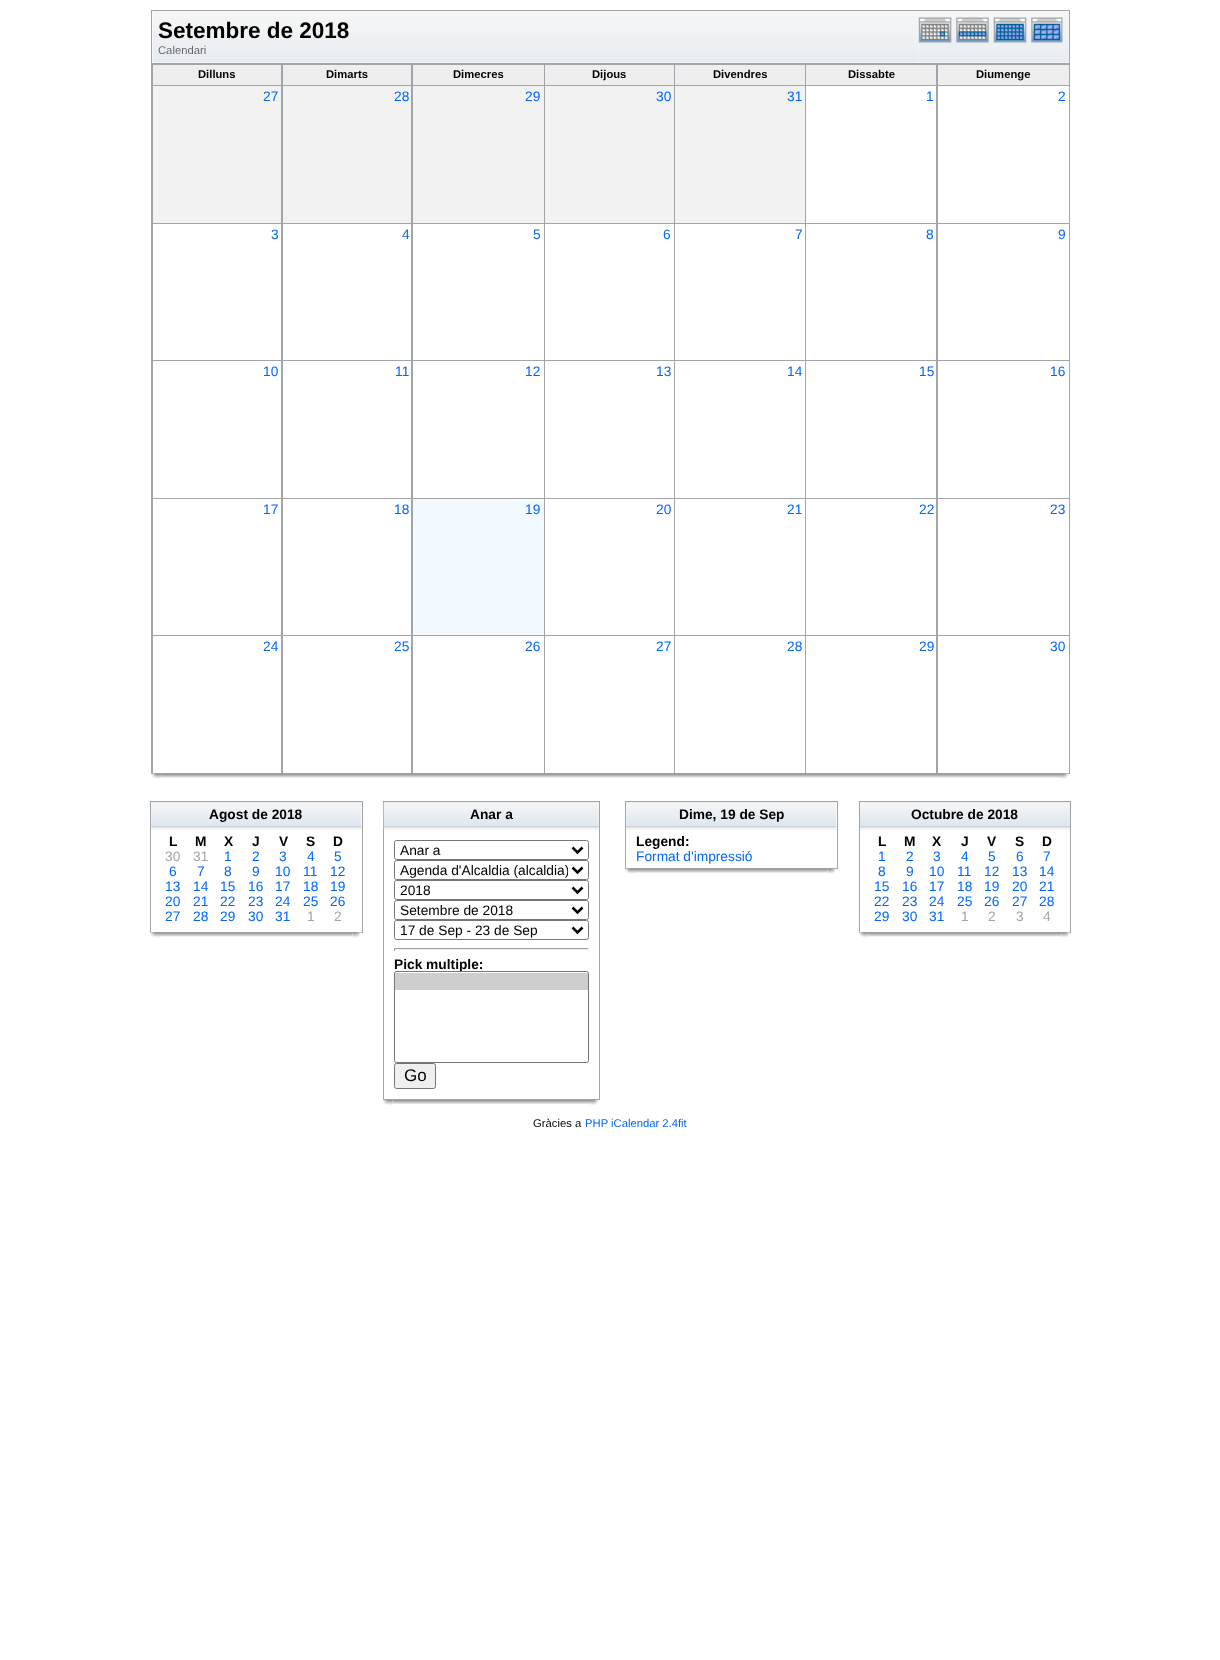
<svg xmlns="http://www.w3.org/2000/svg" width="1220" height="1660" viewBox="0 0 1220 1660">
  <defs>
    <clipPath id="clip1"><rect x="400" y="861" width="168" height="18"/></clipPath>
  </defs>
  <rect width="100%" height="100%" fill="rgb(255,255,255)"/>
  <rect x="151.5" y="10.5" width="918" height="53" fill="none" stroke="rgb(161,165,169)"/>
  <image x="152" y="11" width="767" height="52" href="pic1.png"/>
  <text x="158" y="38" font-family="Liberation Sans" font-size="22.5" font-weight="bold" fill="rgb(0,0,0)">Setembre de 2018</text>
  <text x="158" y="54" font-family="Liberation Sans" font-size="11.25" fill="rgb(102,102,102)">Calendari</text>
  <image x="919" y="11" width="150" height="52" href="pic2.png"/>
  <image x="918" y="17" width="34" height="26" href="pic3.png"/>
  <image x="956" y="17" width="33" height="26" href="pic4.png"/>
  <image x="993" y="17" width="34" height="26" href="pic5.png"/>
  <image x="1031" y="17" width="32" height="26" href="pic6.png"/>
  <rect x="151" y="64" width="919" height="710" fill="rgb(161,165,169)"/>
  <rect x="153" y="65" width="128" height="20" fill="rgb(238,238,238)"/>
  <text x="198" y="78" font-family="Liberation Sans" font-size="11.25" font-weight="bold" fill="rgb(0,0,0)">Dilluns</text>
  <rect x="283" y="65" width="128" height="20" fill="rgb(238,238,238)"/>
  <text x="326" y="78" font-family="Liberation Sans" font-size="11.25" font-weight="bold" fill="rgb(0,0,0)">Dimarts</text>
  <rect x="413" y="65" width="131" height="20" fill="rgb(238,238,238)"/>
  <text x="453" y="78" font-family="Liberation Sans" font-size="11.25" font-weight="bold" fill="rgb(0,0,0)">Dimecres</text>
  <rect x="545" y="65" width="129" height="20" fill="rgb(238,238,238)"/>
  <text x="592" y="78" font-family="Liberation Sans" font-size="11.25" font-weight="bold" fill="rgb(0,0,0)">Dijous</text>
  <rect x="675" y="65" width="130" height="20" fill="rgb(238,238,238)"/>
  <text x="713" y="78" font-family="Liberation Sans" font-size="11.25" font-weight="bold" fill="rgb(0,0,0)">Divendres</text>
  <rect x="806" y="65" width="130" height="20" fill="rgb(238,238,238)"/>
  <text x="848" y="78" font-family="Liberation Sans" font-size="11.25" font-weight="bold" fill="rgb(0,0,0)">Dissabte</text>
  <rect x="938" y="65" width="131" height="20" fill="rgb(238,238,238)"/>
  <text x="976" y="78" font-family="Liberation Sans" font-size="11.25" font-weight="bold" fill="rgb(0,0,0)">Diumenge</text>
  <rect x="153" y="86" width="128" height="137" fill="rgb(242,242,242)"/>
  <text x="263" y="101" font-family="Liberation Sans" font-size="13.75" fill="rgb(0,102,255)">27</text>
  <rect x="283" y="86" width="128" height="137" fill="rgb(242,242,242)"/>
  <text x="394" y="101" font-family="Liberation Sans" font-size="13.75" fill="rgb(0,102,255)">28</text>
  <rect x="413" y="86" width="131" height="137" fill="rgb(242,242,242)"/>
  <text x="525" y="101" font-family="Liberation Sans" font-size="13.75" fill="rgb(0,102,255)">29</text>
  <rect x="545" y="86" width="129" height="137" fill="rgb(242,242,242)"/>
  <text x="656" y="101" font-family="Liberation Sans" font-size="13.75" fill="rgb(0,102,255)">30</text>
  <rect x="675" y="86" width="130" height="137" fill="rgb(242,242,242)"/>
  <text x="787" y="101" font-family="Liberation Sans" font-size="13.75" fill="rgb(0,102,255)">31</text>
  <rect x="806" y="86" width="130" height="137" fill="rgb(255,255,255)"/>
  <text x="926" y="101" font-family="Liberation Sans" font-size="13.75" fill="rgb(0,102,255)">1</text>
  <rect x="938" y="86" width="131" height="137" fill="rgb(255,255,255)"/>
  <text x="1058" y="101" font-family="Liberation Sans" font-size="13.75" fill="rgb(0,102,255)">2</text>
  <rect x="153" y="224" width="128" height="136" fill="rgb(255,255,255)"/>
  <text x="271" y="239" font-family="Liberation Sans" font-size="13.75" fill="rgb(0,102,255)">3</text>
  <rect x="283" y="224" width="128" height="136" fill="rgb(255,255,255)"/>
  <text x="402" y="239" font-family="Liberation Sans" font-size="13.75" fill="rgb(0,102,255)">4</text>
  <rect x="413" y="224" width="131" height="136" fill="rgb(255,255,255)"/>
  <text x="533" y="239" font-family="Liberation Sans" font-size="13.75" fill="rgb(0,102,255)">5</text>
  <rect x="545" y="224" width="129" height="136" fill="rgb(255,255,255)"/>
  <text x="663" y="239" font-family="Liberation Sans" font-size="13.75" fill="rgb(0,102,255)">6</text>
  <rect x="675" y="224" width="130" height="136" fill="rgb(255,255,255)"/>
  <text x="795" y="239" font-family="Liberation Sans" font-size="13.75" fill="rgb(0,102,255)">7</text>
  <rect x="806" y="224" width="130" height="136" fill="rgb(255,255,255)"/>
  <text x="926" y="239" font-family="Liberation Sans" font-size="13.75" fill="rgb(0,102,255)">8</text>
  <rect x="938" y="224" width="131" height="136" fill="rgb(255,255,255)"/>
  <text x="1058" y="239" font-family="Liberation Sans" font-size="13.75" fill="rgb(0,102,255)">9</text>
  <rect x="153" y="361" width="128" height="137" fill="rgb(255,255,255)"/>
  <text x="263" y="376" font-family="Liberation Sans" font-size="13.75" fill="rgb(0,102,255)">10</text>
  <rect x="283" y="361" width="128" height="137" fill="rgb(255,255,255)"/>
  <text x="395" y="376" font-family="Liberation Sans" font-size="13.75" fill="rgb(0,102,255)">11</text>
  <rect x="413" y="361" width="131" height="137" fill="rgb(255,255,255)"/>
  <text x="525" y="376" font-family="Liberation Sans" font-size="13.75" fill="rgb(0,102,255)">12</text>
  <rect x="545" y="361" width="129" height="137" fill="rgb(255,255,255)"/>
  <text x="656" y="376" font-family="Liberation Sans" font-size="13.75" fill="rgb(0,102,255)">13</text>
  <rect x="675" y="361" width="130" height="137" fill="rgb(255,255,255)"/>
  <text x="787" y="376" font-family="Liberation Sans" font-size="13.75" fill="rgb(0,102,255)">14</text>
  <rect x="806" y="361" width="130" height="137" fill="rgb(255,255,255)"/>
  <text x="919" y="376" font-family="Liberation Sans" font-size="13.75" fill="rgb(0,102,255)">15</text>
  <rect x="938" y="361" width="131" height="137" fill="rgb(255,255,255)"/>
  <text x="1050" y="376" font-family="Liberation Sans" font-size="13.75" fill="rgb(0,102,255)">16</text>
  <rect x="153" y="499" width="128" height="136" fill="rgb(255,255,255)"/>
  <text x="263" y="514" font-family="Liberation Sans" font-size="13.75" fill="rgb(0,102,255)">17</text>
  <rect x="283" y="499" width="128" height="136" fill="rgb(255,255,255)"/>
  <text x="394" y="514" font-family="Liberation Sans" font-size="13.75" fill="rgb(0,102,255)">18</text>
  <rect x="413" y="499" width="131" height="136" fill="rgb(242,249,255)"/>
  <text x="525" y="514" font-family="Liberation Sans" font-size="13.75" fill="rgb(0,102,255)">19</text>
  <rect x="545" y="499" width="129" height="136" fill="rgb(255,255,255)"/>
  <text x="656" y="514" font-family="Liberation Sans" font-size="13.75" fill="rgb(0,102,255)">20</text>
  <rect x="675" y="499" width="130" height="136" fill="rgb(255,255,255)"/>
  <text x="787" y="514" font-family="Liberation Sans" font-size="13.75" fill="rgb(0,102,255)">21</text>
  <rect x="806" y="499" width="130" height="136" fill="rgb(255,255,255)"/>
  <text x="919" y="514" font-family="Liberation Sans" font-size="13.75" fill="rgb(0,102,255)">22</text>
  <rect x="938" y="499" width="131" height="136" fill="rgb(255,255,255)"/>
  <text x="1050" y="514" font-family="Liberation Sans" font-size="13.75" fill="rgb(0,102,255)">23</text>
  <rect x="153" y="636" width="128" height="137" fill="rgb(255,255,255)"/>
  <text x="263" y="651" font-family="Liberation Sans" font-size="13.75" fill="rgb(0,102,255)">24</text>
  <rect x="283" y="636" width="128" height="137" fill="rgb(255,255,255)"/>
  <text x="394" y="651" font-family="Liberation Sans" font-size="13.75" fill="rgb(0,102,255)">25</text>
  <rect x="413" y="636" width="131" height="137" fill="rgb(255,255,255)"/>
  <text x="525" y="651" font-family="Liberation Sans" font-size="13.75" fill="rgb(0,102,255)">26</text>
  <rect x="545" y="636" width="129" height="137" fill="rgb(255,255,255)"/>
  <text x="656" y="651" font-family="Liberation Sans" font-size="13.75" fill="rgb(0,102,255)">27</text>
  <rect x="675" y="636" width="130" height="137" fill="rgb(255,255,255)"/>
  <text x="787" y="651" font-family="Liberation Sans" font-size="13.75" fill="rgb(0,102,255)">28</text>
  <rect x="806" y="636" width="130" height="137" fill="rgb(255,255,255)"/>
  <text x="919" y="651" font-family="Liberation Sans" font-size="13.75" fill="rgb(0,102,255)">29</text>
  <rect x="938" y="636" width="131" height="137" fill="rgb(255,255,255)"/>
  <text x="1050" y="651" font-family="Liberation Sans" font-size="13.75" fill="rgb(0,102,255)">30</text>
  <image x="151" y="773" width="11" height="6" href="pic7.png"/>
  <image x="161" y="773" width="899" height="5" href="pic8.png"/>
  <image x="1060" y="773" width="9" height="6" href="pic9.png"/>
  <rect x="150.5" y="801.5" width="212" height="131" fill="none" stroke="rgb(161,165,169)"/>
  <image x="151" y="802" width="211" height="28" href="pic10.png"/>
  <g font-family="Liberation Sans" font-size="13.75" font-weight="bold" fill="rgb(0,0,0)">
    <text x="209" y="819">Agost de 2018</text>
    <text x="169" y="846">L</text>
    <text x="195" y="846">M</text>
    <text x="224" y="846">X</text>
    <text x="252" y="846">J</text>
    <text x="279" y="846">V</text>
    <text x="306" y="846">S</text>
    <text x="333" y="846">D</text>
  </g>
  <g font-family="Liberation Sans" font-size="13.75" fill="rgb(161,165,169)">
    <text x="165" y="861">30</text>
    <text x="193" y="861">31</text>
  </g>
  <g font-family="Liberation Sans" font-size="13.75" fill="rgb(0,102,255)">
    <text x="224" y="861">1</text>
    <text x="252" y="861">2</text>
    <text x="279" y="861">3</text>
    <text x="307" y="861">4</text>
    <text x="334" y="861">5</text>
    <text x="169" y="876">6</text>
    <text x="197" y="876">7</text>
    <text x="224" y="876">8</text>
    <text x="252" y="876">9</text>
    <text x="275" y="876">10</text>
    <text x="303" y="876">11</text>
    <text x="330" y="876">12</text>
    <text x="165" y="891">13</text>
    <text x="193" y="891">14</text>
    <text x="220" y="891">15</text>
    <text x="248" y="891">16</text>
    <text x="275" y="891">17</text>
    <text x="303" y="891">18</text>
    <text x="330" y="891">19</text>
    <text x="165" y="906">20</text>
    <text x="193" y="906">21</text>
    <text x="220" y="906">22</text>
    <text x="248" y="906">23</text>
    <text x="275" y="906">24</text>
    <text x="303" y="906">25</text>
    <text x="330" y="906">26</text>
    <text x="165" y="921">27</text>
    <text x="193" y="921">28</text>
    <text x="220" y="921">29</text>
    <text x="248" y="921">30</text>
    <text x="275" y="921">31</text>
  </g>
  <g font-family="Liberation Sans" font-size="13.75" fill="rgb(161,165,169)">
    <text x="307" y="921">1</text>
    <text x="334" y="921">2</text>
  </g>
  <image x="150" y="932" width="10" height="6" href="pic11.png"/>
  <image x="160" y="932" width="193" height="5" href="pic12.png"/>
  <image x="352" y="932" width="10" height="6" href="pic13.png"/>
  <rect x="383.5" y="801.5" width="216" height="298" fill="none" stroke="rgb(161,165,169)"/>
  <image x="383" y="802" width="216" height="28" href="pic14.png"/>
  <text x="470" y="819" font-family="Liberation Sans" font-size="13.75" font-weight="bold" fill="rgb(0,0,0)">Anar a</text>
  <rect x="394.5" y="840.5" width="194" height="19" rx="2" fill="none" stroke="rgb(118,118,118)"/>
  <path d="M572.5 847.5L577.5 852.5L582.5 847.5" fill="none" stroke="rgb(0,0,0)" stroke-width="2.5"/>
  <text x="400" y="855" font-family="Liberation Sans" font-size="13.75" fill="rgb(0,0,0)">Anar a</text>
  <rect x="394.5" y="860.5" width="194" height="19" rx="2" fill="none" stroke="rgb(118,118,118)"/>
  <path d="M572.5 867.5L577.5 872.5L582.5 867.5" fill="none" stroke="rgb(0,0,0)" stroke-width="2.5"/>
  <g clip-path="url(#clip1)">
    <text x="400" y="875" font-family="Liberation Sans" font-size="13.75" fill="rgb(0,0,0)">Agenda d'Alcaldia (alcaldia)</text>
  </g>
  <rect x="394.5" y="880.5" width="194" height="19" rx="2" fill="none" stroke="rgb(118,118,118)"/>
  <path d="M572.5 887.5L577.5 892.5L582.5 887.5" fill="none" stroke="rgb(0,0,0)" stroke-width="2.5"/>
  <text x="400" y="895" font-family="Liberation Sans" font-size="13.75" fill="rgb(0,0,0)">2018</text>
  <rect x="394.5" y="900.5" width="194" height="19" rx="2" fill="none" stroke="rgb(118,118,118)"/>
  <path d="M572.5 907.5L577.5 912.5L582.5 907.5" fill="none" stroke="rgb(0,0,0)" stroke-width="2.5"/>
  <text x="400" y="915" font-family="Liberation Sans" font-size="13.75" fill="rgb(0,0,0)">Setembre de 2018</text>
  <rect x="394.5" y="920.5" width="194" height="19" rx="2" fill="none" stroke="rgb(118,118,118)"/>
  <path d="M572.5 927.5L577.5 932.5L582.5 927.5" fill="none" stroke="rgb(0,0,0)" stroke-width="2.5"/>
  <text x="400" y="935" font-family="Liberation Sans" font-size="13.75" fill="rgb(0,0,0)">17 de Sep - 23 de Sep</text>
  <rect x="394" y="948" width="195" height="1" fill="rgb(159,159,159)"/>
  <rect x="588" y="948" width="1" height="3" fill="rgb(238,238,238)"/>
  <rect x="394" y="949" width="195" height="1" fill="rgb(238,238,238)"/>
  <rect x="394" y="948" width="1" height="3" fill="rgb(159,159,159)"/>
  <text x="394" y="969" font-family="Liberation Sans" font-size="13.75" font-weight="bold" fill="rgb(0,0,0)">Pick multiple:</text>
  <rect x="394.5" y="971.5" width="194" height="91" rx="2" fill="rgb(255,255,255)" stroke="rgb(118,118,118)"/>
  <path d="M396 973H587C587.5 973 588 973.5 588 974V990H395V974C395 973.5 395.5 973 396 973Z" fill="rgb(206,206,206)"/>
  <rect x="394.5" y="1063.5" width="41" height="25" rx="2" fill="rgb(239,239,239)" stroke="rgb(118,118,118)"/>
  <text x="404" y="1081" font-family="Liberation Sans" font-size="17" fill="rgb(0,0,0)">Go</text>
  <image x="382" y="1100" width="11" height="5" href="pic15.png"/>
  <image x="392" y="1100" width="198" height="4" href="pic16.png"/>
  <image x="590" y="1100" width="9" height="5" href="pic17.png"/>
  <rect x="625.5" y="801.5" width="212" height="67" fill="none" stroke="rgb(161,165,169)"/>
  <image x="626" y="802" width="211" height="28" href="pic10.png"/>
  <g font-family="Liberation Sans" font-size="13.75" font-weight="bold" fill="rgb(0,0,0)">
    <text x="679" y="819">Dime, 19 de Sep</text>
    <text x="636" y="846">Legend:</text>
  </g>
  <text x="636" y="861" font-family="Liberation Sans" font-size="13.75" fill="rgb(0,102,255)">Format d'impressió</text>
  <image x="625" y="868" width="10" height="6" href="pic18.png"/>
  <image x="635" y="868" width="193" height="5" href="pic19.png"/>
  <image x="827" y="868" width="10" height="6" href="pic20.png"/>
  <rect x="859.5" y="801.5" width="211" height="131" fill="none" stroke="rgb(161,165,169)"/>
  <image x="860" y="802" width="210" height="28" href="pic21.png"/>
  <g font-family="Liberation Sans" font-size="13.75" font-weight="bold" fill="rgb(0,0,0)">
    <text x="911" y="819">Octubre de 2018</text>
    <text x="878" y="846">L</text>
    <text x="904" y="846">M</text>
    <text x="932" y="846">X</text>
    <text x="961" y="846">J</text>
    <text x="987" y="846">V</text>
    <text x="1015" y="846">S</text>
    <text x="1042" y="846">D</text>
  </g>
  <g font-family="Liberation Sans" font-size="13.75" fill="rgb(0,102,255)">
    <text x="878" y="861">1</text>
    <text x="906" y="861">2</text>
    <text x="933" y="861">3</text>
    <text x="961" y="861">4</text>
    <text x="988" y="861">5</text>
    <text x="1016" y="861">6</text>
    <text x="1043" y="861">7</text>
    <text x="878" y="876">8</text>
    <text x="906" y="876">9</text>
    <text x="929" y="876">10</text>
    <text x="957" y="876">11</text>
    <text x="984" y="876">12</text>
    <text x="1012" y="876">13</text>
    <text x="1039" y="876">14</text>
    <text x="874" y="891">15</text>
    <text x="902" y="891">16</text>
    <text x="929" y="891">17</text>
    <text x="957" y="891">18</text>
    <text x="984" y="891">19</text>
    <text x="1012" y="891">20</text>
    <text x="1039" y="891">21</text>
    <text x="874" y="906">22</text>
    <text x="902" y="906">23</text>
    <text x="929" y="906">24</text>
    <text x="957" y="906">25</text>
    <text x="984" y="906">26</text>
    <text x="1012" y="906">27</text>
    <text x="1039" y="906">28</text>
    <text x="874" y="921">29</text>
    <text x="902" y="921">30</text>
    <text x="929" y="921">31</text>
  </g>
  <g font-family="Liberation Sans" font-size="13.75" fill="rgb(161,165,169)">
    <text x="961" y="921">1</text>
    <text x="988" y="921">2</text>
    <text x="1016" y="921">3</text>
    <text x="1043" y="921">4</text>
  </g>
  <image x="859" y="932" width="10" height="6" href="pic22.png"/>
  <image x="868" y="932" width="194" height="5" href="pic23.png"/>
  <image x="1061" y="932" width="10" height="6" href="pic24.png"/>
  <text x="533" y="1127" font-family="Liberation Sans" font-size="11.25" fill="rgb(0,0,0)">Gràcies a</text>
  <text x="585" y="1127" font-family="Liberation Sans" font-size="11.25" fill="rgb(0,102,255)">PHP iCalendar 2.4fit</text>
</svg>
